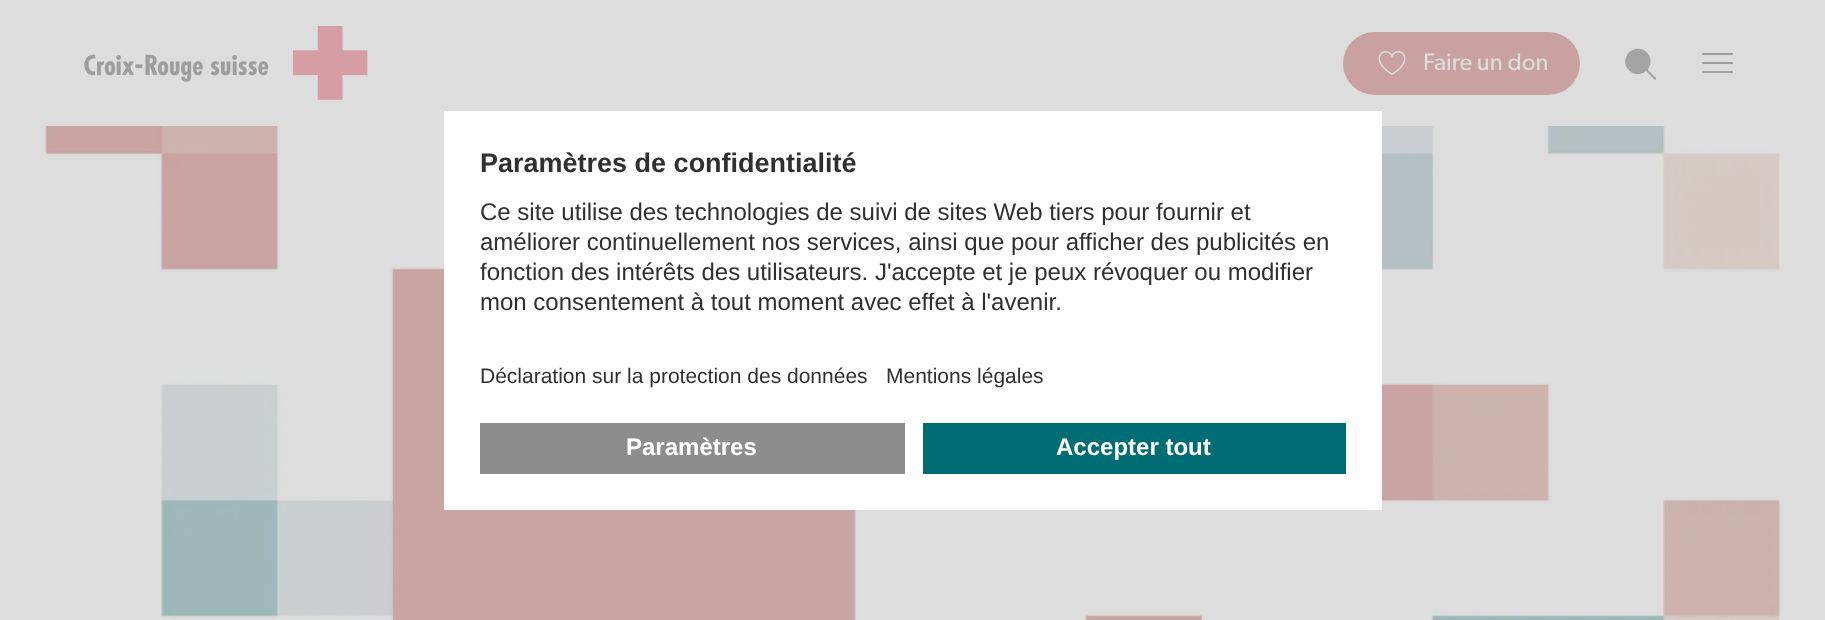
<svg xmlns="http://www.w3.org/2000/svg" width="1825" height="620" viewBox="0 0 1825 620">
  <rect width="100%" height="100%" fill="rgb(221,221,221)"/>
  <image x="84" y="26" width="284" height="74" href="pic1.png"/>
  <rect x="1343" y="32" width="237" height="63" rx="31.5" fill="rgb(201,161,160)"/>
  <image x="1378" y="51" width="28" height="24" href="pic2.png"/>
  <text x="1423" y="70" font-family="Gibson" font-size="24" fill="rgb(221,221,221)">Faire un don</text>
  <image x="1625" y="48" width="32" height="32" href="pic3.png"/>
  <path d="M1703 72H1732M1703 63H1732M1703 54H1732" fill="none" stroke="rgb(158,158,158)" stroke-width="2.2" stroke-linecap="round" stroke-linejoin="round"/>
  <image x="44" y="126" width="1741" height="494" href="pic4.png"/>
  <rect x="444" y="111" width="938" height="399" fill="rgb(255,255,255)"/>
  <text x="480" y="172" font-family="Liberation Sans" font-size="27" font-weight="bold" fill="rgb(48,48,48)">Paramètres de confidentialité</text>
  <g font-family="Liberation Sans" font-size="24" fill="rgb(48,48,48)">
    <text>
      <tspan x="480" y="220">Ce site utilise des technologies de suivi de sites Web tiers pour fournir et</tspan>
      <tspan x="480" y="250">améliorer continuellement nos services, ainsi que pour afficher des publicités en</tspan>
      <tspan x="480" y="280">fonction des intérêts des utilisateurs. J'accepte et je peux révoquer ou modifier</tspan>
      <tspan x="480" y="310">mon consentement à tout moment avec effet à l'avenir.</tspan>
    </text>
  </g>
  <g font-family="Liberation Sans" font-size="21" fill="rgb(48,48,48)">
    <text x="480" y="383">Déclaration sur la protection des données</text>
    <text x="886" y="383">Mentions légales</text>
  </g>
  <rect x="480" y="423" width="425" height="51" fill="rgb(141,141,141)"/>
  <text x="626" y="455" font-family="Liberation Sans" font-size="24" font-weight="bold" fill="rgb(255,255,255)">Paramètres</text>
  <rect x="923" y="423" width="423" height="51" fill="rgb(0,108,115)"/>
  <text x="1056" y="455" font-family="Liberation Sans" font-size="24" font-weight="bold" fill="rgb(255,255,255)">Accepter tout</text>
</svg>
